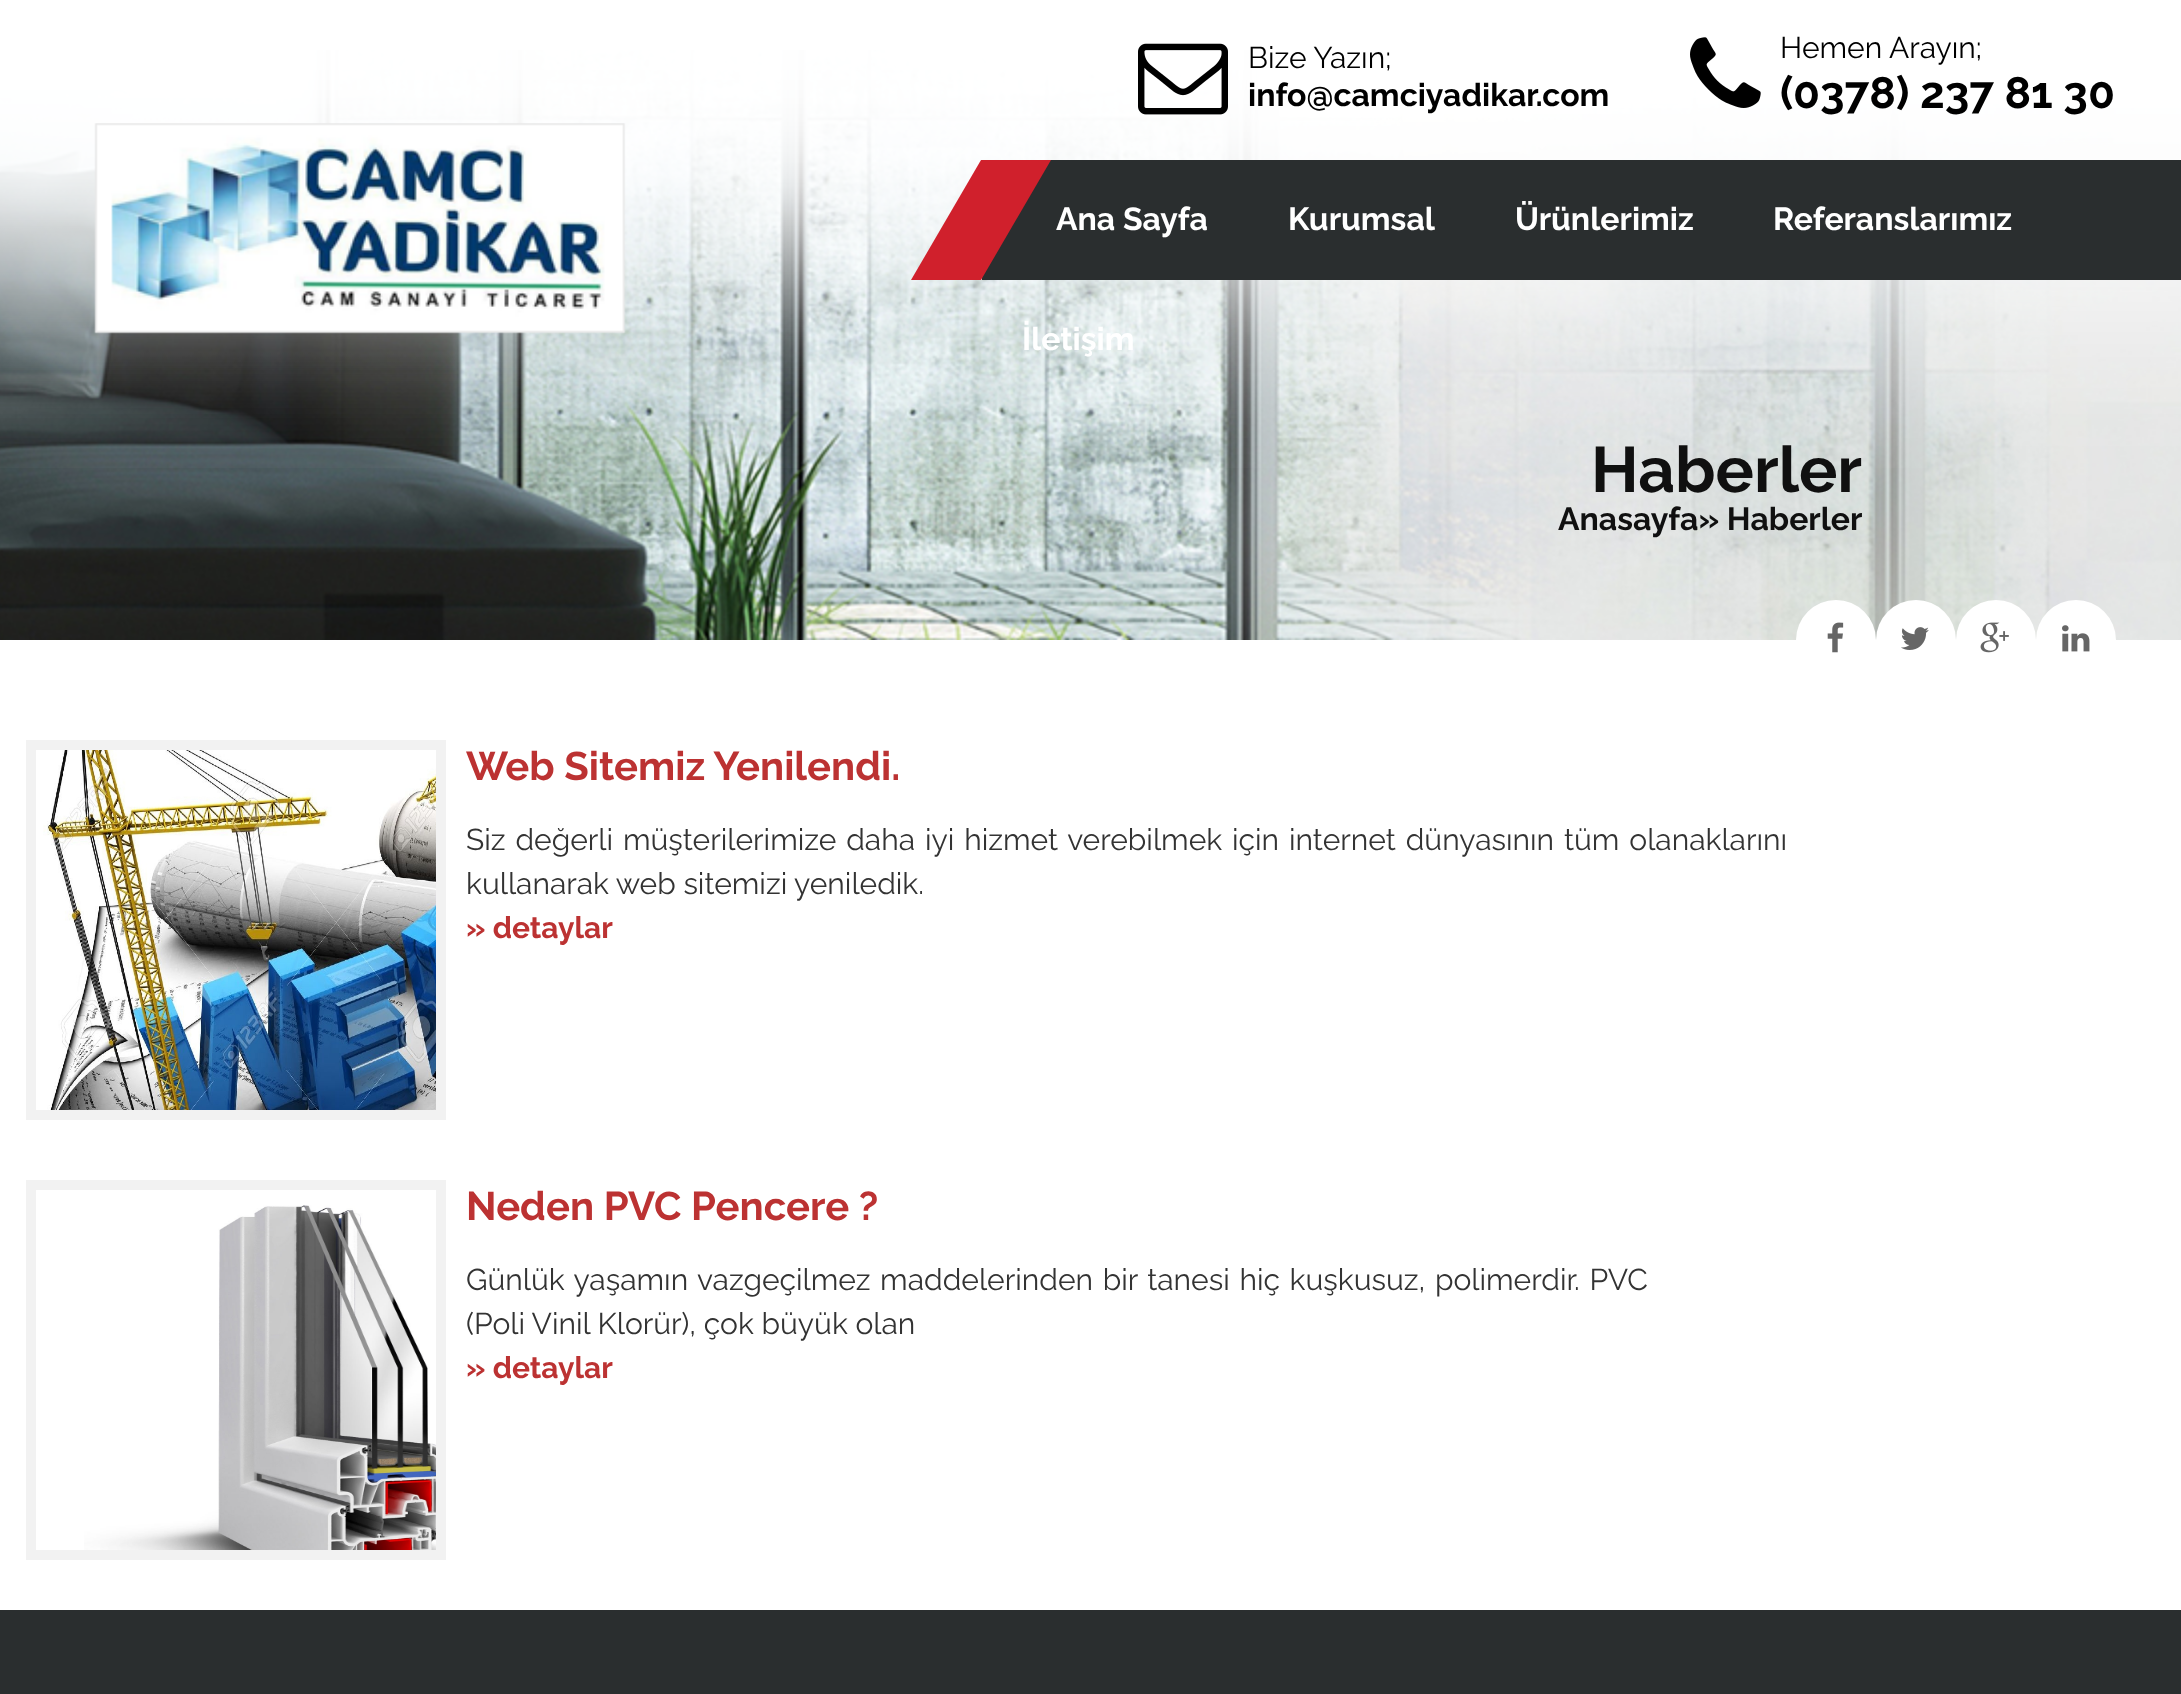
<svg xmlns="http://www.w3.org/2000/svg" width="2181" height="1694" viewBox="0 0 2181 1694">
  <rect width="100%" height="100%" fill="rgb(255,255,255)"/>
  <image x="0" y="50" width="2181" height="590" href="pic2.png"/>
  <image x="0" y="0" width="2181" height="468" href="pic1.png"/>
  <image x="1138" y="43" width="90" height="72" href="pic3.png"/>
  <text x="1248" y="68" font-family="Raleway" font-size="30" fill="rgb(0,0,0)">Bize Yazın;</text>
  <text x="1248" y="106" font-family="Raleway" font-size="32" font-weight="bold" fill="rgb(0,0,0)">info@camciyadikar.com</text>
  <image x="1690" y="37" width="71" height="71" href="pic4.png"/>
  <text x="1780" y="58" font-family="Raleway" font-size="30" fill="rgb(0,0,0)">Hemen Arayın;</text>
  <text x="1780" y="108" font-family="Raleway" font-size="44" font-weight="bold" fill="rgb(0,0,0)">(0378) 237 81 30</text>
  <image x="94" y="123" width="532" height="211" href="pic5.png"/>
  <rect x="982" y="160" width="1199" height="120" fill="rgb(42,46,47)"/>
  <path d="M981 160H1051L981 280H911Z" fill="rgb(208,32,44)"/>
  <g font-family="Raleway" font-size="32" font-weight="bold" fill="rgb(255,255,255)">
    <text x="1056" y="230">Ana Sayfa</text>
    <text x="1288" y="230">Kurumsal</text>
    <text x="1515" y="230">Ürünlerimiz</text>
    <text x="1773" y="230">Referanslarımız</text>
    <text x="1022" y="350">İletişim</text>
  </g>
  <text x="1591" y="492" font-family="Raleway" font-size="64" font-weight="bold" fill="rgb(16,16,16)">Haberler</text>
  <text x="1558" y="530" font-family="Raleway" font-size="32" font-weight="bold" fill="rgb(16,16,16)">Anasayfa» Haberler</text>
  <circle cx="1836" cy="640" r="40" fill="rgb(255,255,255)"/>
  <image x="1827" y="622" width="17" height="31" href="pic6.png"/>
  <circle cx="1916" cy="640" r="40" fill="rgb(255,255,255)"/>
  <image x="1901" y="627" width="28" height="23" href="pic7.png"/>
  <circle cx="1996" cy="640" r="40" fill="rgb(255,255,255)"/>
  <image x="1980" y="622" width="29" height="31" href="pic8.png"/>
  <circle cx="2076" cy="640" r="40" fill="rgb(255,255,255)"/>
  <image x="2062" y="625" width="28" height="27" href="pic9.png"/>
  <rect x="31" y="745" width="410" height="370" fill="none" stroke="rgb(242,242,242)" stroke-width="10"/>
  <image x="43" y="750" width="393" height="360" href="pic10.png"/>
  <text x="466" y="780" font-family="Raleway" font-size="40" font-weight="bold" fill="rgb(188,50,50)">Web Sitemiz Yenilendi.</text>
  <g font-family="Raleway" font-size="30" fill="rgb(51,51,51)">
    <text>
      <tspan x="466" y="850" word-spacing="2.25">Siz değerli müşterilerimize daha iyi hizmet verebilmek için internet dünyasının tüm olanaklarını</tspan>
      <tspan x="466" y="894">kullanarak web sitemizi yeniledik.</tspan>
    </text>
  </g>
  <text x="466" y="938" font-family="Raleway" font-size="30" font-weight="bold" fill="rgb(188,50,50)">» detaylar</text>
  <rect x="31" y="1185" width="410" height="370" fill="none" stroke="rgb(242,242,242)" stroke-width="10"/>
  <image x="84" y="1205" width="352" height="345" href="pic11.png"/>
  <text x="466" y="1220" font-family="Raleway" font-size="40" font-weight="bold" fill="rgb(188,50,50)">Neden PVC Pencere ?</text>
  <g font-family="Raleway" font-size="30" fill="rgb(51,51,51)">
    <text>
      <tspan x="466" y="1290" word-spacing="2">Günlük yaşamın vazgeçilmez maddelerinden bir tanesi hiç kuşkusuz, polimerdir. PVC</tspan>
      <tspan x="466" y="1334">(Poli Vinil Klorür), çok büyük olan</tspan>
    </text>
  </g>
  <text x="466" y="1378" font-family="Raleway" font-size="30" font-weight="bold" fill="rgb(188,50,50)">» detaylar</text>
  <rect x="0" y="1610" width="2181" height="84" fill="rgb(42,46,47)"/>
</svg>
